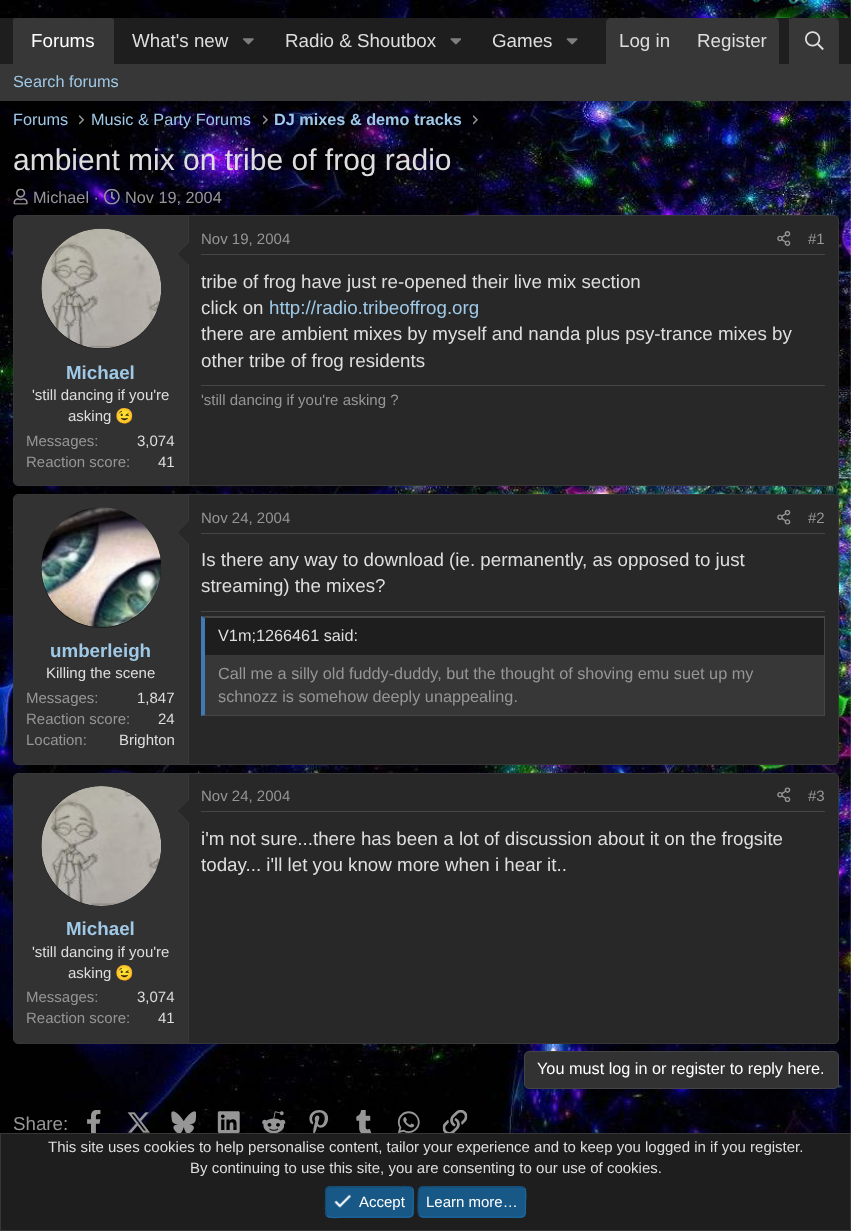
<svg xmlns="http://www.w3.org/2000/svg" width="851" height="1231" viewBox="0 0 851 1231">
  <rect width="100%" height="100%" fill="rgb(255,255,255)"/>
  <image x="0" y="0" width="851" height="1133" href="pic1.png"/>
  <image x="752" y="0" width="56" height="4" href="pic2.png"/>
  <rect x="0" y="18" width="851" height="46" fill="rgb(30,30,30)"/>
  <path d="M15.5 18H111.5C113 18 114 19 114 20.5V64H13V20.5C13 19 14 18 15.5 18Z" fill="rgb(55,55,55)"/>
  <text x="31" y="47" font-family="Liberation Sans" font-size="18.75" fill="rgb(255,255,255)">Forums</text>
  <text x="132" y="47" font-family="Liberation Sans" font-size="18.75" fill="rgb(222,222,222)">What's new</text>
  <image x="243" y="38" width="11" height="7" href="pic3.png"/>
  <text x="285" y="47" font-family="Liberation Sans" font-size="18.75" fill="rgb(222,222,222)">Radio &amp; Shoutbox</text>
  <image x="450" y="38" width="11" height="7" href="pic4.png"/>
  <text x="492" y="47" font-family="Liberation Sans" font-size="18.75" fill="rgb(222,222,222)">Games</text>
  <image x="566" y="38" width="12" height="7" href="pic5.png"/>
  <path d="M611 18H774C777 18 779 20 779 23V64H606V23C606 20 608 18 611 18Z" fill="rgb(55,55,55)"/>
  <g font-family="Liberation Sans" font-size="18.75" fill="rgb(222,222,222)">
    <text x="619" y="47">Log in</text>
    <text x="697" y="47">Register</text>
  </g>
  <path d="M794 18H834C837 18 839 20 839 23V64H789V23C789 20 791 18 794 18Z" fill="rgb(55,55,55)"/>
  <rect x="789" y="18" width="1" height="4" fill="rgb(55,55,55)"/>
  <image x="805" y="31" width="19" height="19" href="pic6.png"/>
  <rect x="0" y="64" width="851" height="37" fill="rgb(55,55,55)"/>
  <g font-family="Liberation Sans" font-size="16.25" fill="rgb(159,201,231)">
    <text x="13" y="87">Search forums</text>
    <text x="13" y="125">Forums</text>
  </g>
  <image x="79" y="115" width="5" height="10" href="pic7.png"/>
  <text x="91" y="125" font-family="Liberation Sans" font-size="16.25" fill="rgb(159,201,231)">Music &amp; Party Forums</text>
  <image x="263" y="115" width="5" height="10" href="pic8.png"/>
  <text x="274" y="125" font-family="Liberation Sans" font-size="16.25" font-weight="bold" fill="rgb(159,201,231)">DJ mixes &amp; demo tracks</text>
  <image x="473" y="115" width="5" height="10" href="pic9.png"/>
  <text x="13" y="170" font-family="Liberation Sans" font-size="30" fill="rgb(222,222,222)">ambient mix on tribe of frog radio</text>
  <image x="13" y="188" width="15" height="17" href="pic10.png"/>
  <text x="33" y="203" font-family="Liberation Sans" font-size="16.25" fill="rgb(150,150,150)">Michael ·</text>
  <image x="104" y="188" width="16" height="17" href="pic11.png"/>
  <text x="125" y="203" font-family="Liberation Sans" font-size="16.25" fill="rgb(150,150,150)">Nov 19, 2004</text>
  <rect x="13.5" y="215.5" width="825" height="270" rx="4.5" fill="rgb(40,40,40)" stroke="rgb(55,55,55)"/>
  <path d="M18 216H189V485H18C16 485 14 483 14 481V220C14 218 16 216 18 216Z" fill="rgb(50,50,50)"/>
  <rect x="188" y="216" width="1" height="269" fill="rgb(55,55,55)"/>
  <circle cx="101" cy="289" r="60" fill="rgb(30,30,30)"/>
  <image x="41" y="228" width="120" height="121" href="pic12.png"/>
  <path d="M189 241V266L176 254Z" fill="rgb(55,55,55)"/>
  <path d="M189 242.5V265L177.5 254Z" fill="rgb(40,40,40)"/>
  <text x="66" y="379" font-family="Liberation Sans" font-size="18.75" font-weight="bold" fill="rgb(159,201,231)">Michael</text>
  <g font-family="Liberation Sans" font-size="15" fill="rgb(222,222,222)">
    <text x="32" y="400">'still dancing if you're</text>
    <text x="68" y="421">asking</text>
  </g>
  <text x="115" y="421" font-family="Noto Color Emoji" font-size="15" fill="rgb(222,222,222)">😉</text>
  <text x="26" y="446" font-family="Liberation Sans" font-size="15" fill="rgb(150,150,150)">Messages:</text>
  <text x="137" y="446" font-family="Liberation Sans" font-size="15" fill="rgb(222,222,222)">3,074</text>
  <text x="26" y="467" font-family="Liberation Sans" font-size="15" fill="rgb(150,150,150)">Reaction score:</text>
  <text x="158" y="467" font-family="Liberation Sans" font-size="15" fill="rgb(222,222,222)">41</text>
  <rect x="201" y="254" width="624" height="1" fill="rgb(70,70,70)"/>
  <text x="201" y="244" font-family="Liberation Sans" font-size="15" fill="rgb(150,150,150)">Nov 19, 2004</text>
  <image x="777" y="231" width="14" height="15" href="pic13.png"/>
  <text x="808" y="244" font-family="Liberation Sans" font-size="15" fill="rgb(150,150,150)">#1</text>
  <g font-family="Liberation Sans" font-size="18.75" fill="rgb(222,222,222)">
    <text>
      <tspan x="201" y="288">tribe of frog have just re-opened their live mix section</tspan>
      <tspan x="201" y="314">click on</tspan>
    </text>
  </g>
  <text x="269" y="314" font-family="Liberation Sans" font-size="18.75" fill="rgb(159,201,231)">http://radio.tribeoffrog.org</text>
  <g font-family="Liberation Sans" font-size="18.75" fill="rgb(222,222,222)">
    <text>
      <tspan x="201" y="340">there are ambient mixes by myself and nanda plus psy-trance mixes by</tspan>
      <tspan x="201" y="367">other tribe of frog residents</tspan>
    </text>
  </g>
  <rect x="201" y="385" width="624" height="1" fill="rgb(70,70,70)"/>
  <text x="201" y="405" font-family="Liberation Sans" font-size="15" fill="rgb(150,150,150)">'still dancing if you're asking ?</text>
  <rect x="13.5" y="494.5" width="825" height="270" rx="4.5" fill="rgb(40,40,40)" stroke="rgb(55,55,55)"/>
  <path d="M18 495H189V764H18C16 764 14 762 14 760V499C14 497 16 495 18 495Z" fill="rgb(50,50,50)"/>
  <rect x="188" y="495" width="1" height="269" fill="rgb(55,55,55)"/>
  <circle cx="101" cy="568" r="60" fill="rgb(30,30,30)"/>
  <image x="41" y="507" width="120" height="120" href="pic14.png"/>
  <path d="M189 520V545L176 532.5Z" fill="rgb(55,55,55)"/>
  <path d="M189 521V544L177.5 532.5Z" fill="rgb(40,40,40)"/>
  <text x="50" y="657" font-family="Liberation Sans" font-size="18.75" font-weight="bold" fill="rgb(159,201,231)">umberleigh</text>
  <text x="46" y="678" font-family="Liberation Sans" font-size="15" fill="rgb(222,222,222)">Killing the scene</text>
  <text x="26" y="703" font-family="Liberation Sans" font-size="15" fill="rgb(150,150,150)">Messages:</text>
  <text x="137" y="703" font-family="Liberation Sans" font-size="15" fill="rgb(222,222,222)">1,847</text>
  <text x="26" y="724" font-family="Liberation Sans" font-size="15" fill="rgb(150,150,150)">Reaction score:</text>
  <text x="158" y="724" font-family="Liberation Sans" font-size="15" fill="rgb(222,222,222)">24</text>
  <text x="26" y="745" font-family="Liberation Sans" font-size="15" fill="rgb(150,150,150)">Location:</text>
  <text x="119" y="745" font-family="Liberation Sans" font-size="15" fill="rgb(222,222,222)">Brighton</text>
  <rect x="201" y="533" width="624" height="1" fill="rgb(70,70,70)"/>
  <text x="201" y="523" font-family="Liberation Sans" font-size="15" fill="rgb(150,150,150)">Nov 24, 2004</text>
  <image x="777" y="510" width="14" height="15" href="pic15.png"/>
  <text x="808" y="523" font-family="Liberation Sans" font-size="15" fill="rgb(150,150,150)">#2</text>
  <g font-family="Liberation Sans" font-size="18.75" fill="rgb(222,222,222)">
    <text>
      <tspan x="201" y="566">Is there any way to download (ie. permanently, as opposed to just</tspan>
      <tspan x="201" y="592">streaming) the mixes?</tspan>
    </text>
  </g>
  <rect x="201" y="611" width="624" height="1" fill="rgb(70,70,70)"/>
  <rect x="205" y="655" width="619" height="60" fill="rgb(55,55,55)"/>
  <path d="M201 616H825L824 618H205Z" fill="rgb(70,70,70)"/>
  <rect x="824" y="616" width="1" height="100" fill="rgb(70,70,70)"/>
  <path d="M825 716H201L205 715H824Z" fill="rgb(70,70,70)"/>
  <path d="M201 716V616L205 618V715Z" fill="rgb(64,121,181)"/>
  <rect x="205" y="618" width="619" height="37" fill="rgb(30,30,30)"/>
  <text x="218" y="641" font-family="Liberation Sans" font-size="16.25" fill="rgb(222,222,222)">V1m;1266461 said:</text>
  <g font-family="Liberation Sans" font-size="16.25" fill="rgb(150,150,150)">
    <text>
      <tspan x="218" y="679">Call me a silly old fuddy-duddy, but the thought of shoving emu suet up my</tspan>
      <tspan x="218" y="702">schnozz is somehow deeply unappealing.</tspan>
    </text>
  </g>
  <rect x="13.5" y="773.5" width="825" height="270" rx="4.5" fill="rgb(40,40,40)" stroke="rgb(55,55,55)"/>
  <rect x="201" y="811" width="624" height="1" fill="rgb(70,70,70)"/>
  <text x="201" y="801" font-family="Liberation Sans" font-size="15" fill="rgb(150,150,150)">Nov 24, 2004</text>
  <image x="777" y="787" width="14" height="15" href="pic16.png"/>
  <text x="808" y="801" font-family="Liberation Sans" font-size="15" fill="rgb(150,150,150)">#3</text>
  <g font-family="Liberation Sans" font-size="18.75" fill="rgb(222,222,222)">
    <text>
      <tspan x="201" y="845">i'm not sure...there has been a lot of discussion about it on the frogsite</tspan>
      <tspan x="201" y="871">today... i'll let you know more when i hear it..</tspan>
    </text>
  </g>
  <path d="M18 774H189V1043H18C16 1043 14 1041 14 1039V778C14 776 16 774 18 774Z" fill="rgb(50,50,50)"/>
  <rect x="188" y="774" width="1" height="269" fill="rgb(55,55,55)"/>
  <circle cx="101" cy="846" r="60" fill="rgb(30,30,30)"/>
  <image x="41" y="786" width="120" height="120" href="pic17.png"/>
  <path d="M189 799V824L176 811Z" fill="rgb(55,55,55)"/>
  <path d="M189 800V822.5L177.5 811Z" fill="rgb(40,40,40)"/>
  <text x="66" y="935" font-family="Liberation Sans" font-size="18.75" font-weight="bold" fill="rgb(159,201,231)">Michael</text>
  <g font-family="Liberation Sans" font-size="15" fill="rgb(222,222,222)">
    <text x="32" y="957">'still dancing if you're</text>
    <text x="68" y="978">asking</text>
  </g>
  <text x="115" y="978" font-family="Noto Color Emoji" font-size="15" fill="rgb(222,222,222)">😉</text>
  <text x="26" y="1002" font-family="Liberation Sans" font-size="15" fill="rgb(150,150,150)">Messages:</text>
  <text x="137" y="1002" font-family="Liberation Sans" font-size="15" fill="rgb(222,222,222)">3,074</text>
  <text x="26" y="1023" font-family="Liberation Sans" font-size="15" fill="rgb(150,150,150)">Reaction score:</text>
  <text x="158" y="1023" font-family="Liberation Sans" font-size="15" fill="rgb(222,222,222)">41</text>
  <rect x="524.5" y="1051.5" width="314" height="37" rx="4.5" fill="rgb(50,50,50)" stroke="rgb(68,68,68)"/>
  <text x="537" y="1074" font-family="Liberation Sans" font-size="16.25" fill="rgb(255,255,255)">You must log in or register to reply here.</text>
  <text x="13" y="1130" font-family="Liberation Sans" font-size="18.75" fill="rgb(150,150,150)">Share:</text>
  <image x="87" y="1110" width="14" height="23" href="pic18.png"/>
  <image x="127" y="1112" width="23" height="21" href="pic19.png"/>
  <image x="171" y="1111" width="25" height="22" href="pic20.png"/>
  <image x="217" y="1111" width="23" height="22" href="pic21.png"/>
  <image x="262" y="1111" width="24" height="22" href="pic22.png"/>
  <image x="309" y="1110" width="20" height="23" href="pic23.png"/>
  <image x="356" y="1110" width="16" height="23" href="pic24.png"/>
  <image x="397" y="1111" width="23" height="22" href="pic25.png"/>
  <image x="442" y="1110" width="26" height="23" href="pic26.png"/>
  <rect x="0.5" y="1133.5" width="850" height="97" fill="rgb(30,30,30)" stroke="rgb(55,55,55)"/>
  <g font-family="Liberation Sans" font-size="15" fill="rgb(222,222,222)">
    <text x="48" y="1152">This site uses cookies to help personalise content, tailor your experience and to keep you logged in if you register.</text>
    <text x="190" y="1173">By continuing to use this site, you are consenting to our use of cookies.</text>
  </g>
  <rect x="325" y="1186" width="89" height="32" rx="5" fill="rgb(24,88,134)"/>
  <path d="M412 1188C414.5 1191 413 1198.5 413 1202C413 1219.5 414.5 1217 395.5 1217H343C342 1217 330 1219 327 1215.5" fill="none" stroke="rgb(28,102,156)" stroke-width="1.2"/>
  <path d="M327 1215.5C324.5 1213 325.5 1205 325.5 1202C325.5 1184 324 1187 343 1187H395.5C397 1187 408.5 1185 412 1188" fill="none" stroke="rgb(20,74,112)" stroke-width="1.2"/>
  <image x="334" y="1194" width="17" height="14" href="pic27.png"/>
  <text x="359" y="1207" font-family="Liberation Sans" font-size="15" fill="rgb(255,255,255)">Accept</text>
  <rect x="418" y="1186" width="108" height="32" rx="5" fill="rgb(24,88,134)"/>
  <path d="M524.5 1188C527 1191 525.5 1198.5 525.5 1202C525.5 1221 526.5 1217 505 1217H422.5L419.5 1215.5" fill="none" stroke="rgb(28,102,156)" stroke-width="1.2"/>
  <path d="M419.5 1215.5C417 1213 418 1205 418 1202C418 1183 417.5 1187 439 1187H521L524.5 1188" fill="none" stroke="rgb(20,74,112)" stroke-width="1.2"/>
  <text x="426" y="1207" font-family="Liberation Sans" font-size="15" fill="rgb(255,255,255)">Learn more…</text>
</svg>
